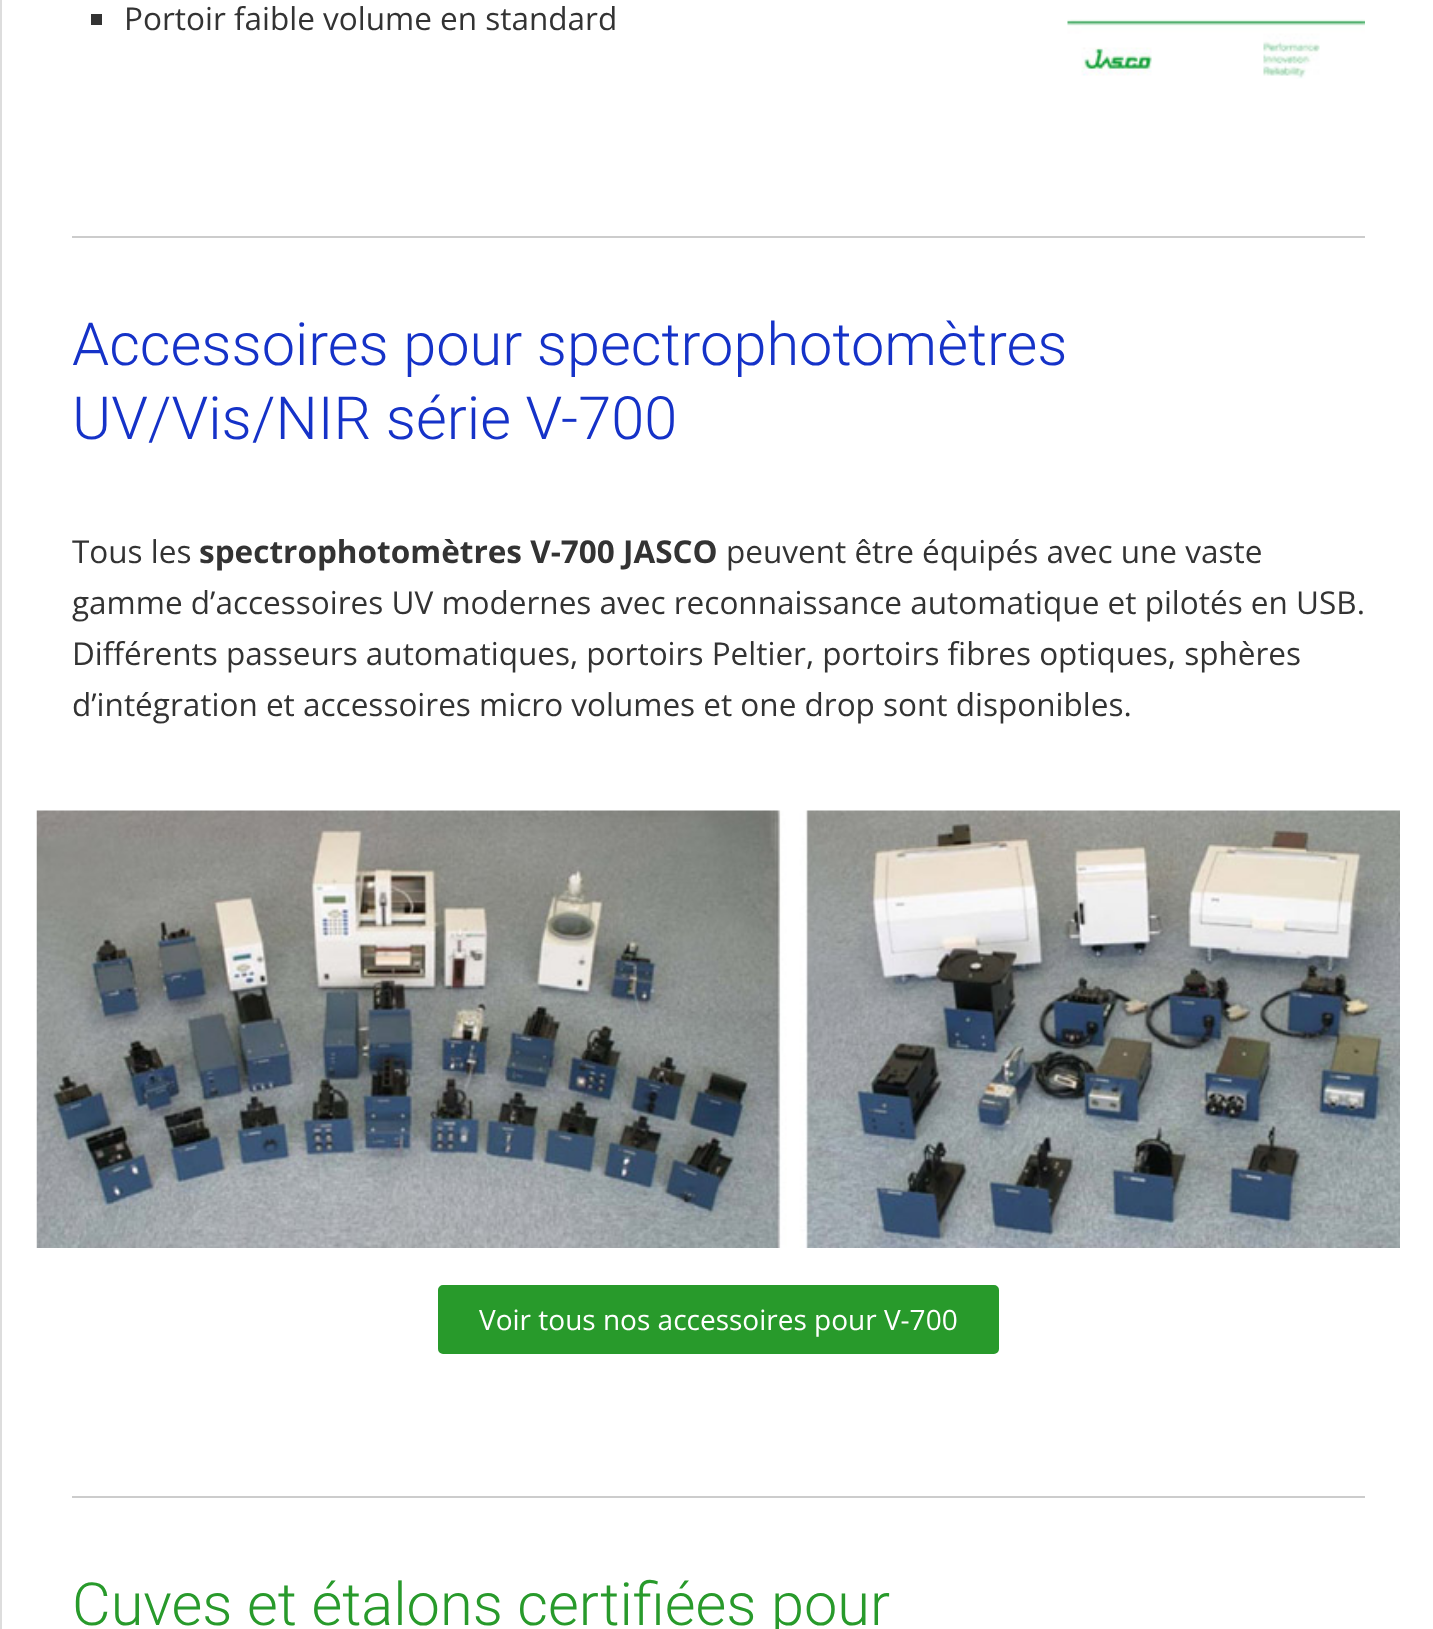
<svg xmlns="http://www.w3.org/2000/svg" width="1433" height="1629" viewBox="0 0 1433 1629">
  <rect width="100%" height="100%" fill="rgb(255,255,255)"/>
  <rect x="1" y="-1" width="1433" height="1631" fill="none" stroke="rgb(221,221,221)" stroke-width="2"/>
  <rect x="91" y="14" width="11" height="11" fill="rgb(51,51,51)"/>
  <text x="124" y="30" font-family="Open Sans" font-size="31.5" fill="rgb(51,51,51)">Portoir faible volume en standard</text>
  <image x="1067" y="19" width="298" height="60" href="pic1.png"/>
  <rect x="72" y="236" width="1293" height="2" fill="rgb(204,204,204)"/>
  <g font-family="Roboto" font-size="59.5" font-weight="300" fill="rgb(21,50,200)">
    <text>
      <tspan x="72" y="365">Accessoires pour spectrophotomètres</tspan>
      <tspan x="72" y="439">UV/Vis/NIR série V-700</tspan>
    </text>
  </g>
  <text x="72" y="563" font-family="Open Sans" font-size="31.5" fill="rgb(51,51,51)">Tous les</text>
  <text x="199" y="563" font-family="Open Sans" font-size="31.5" font-weight="bold" fill="rgb(51,51,51)">spectrophotomètres V-700 JASCO</text>
  <g font-family="Open Sans" font-size="31.5" fill="rgb(51,51,51)">
    <text x="726" y="563">peuvent être équipés avec une vaste</text>
    <text>
      <tspan x="72" y="614">gamme d’accessoires UV modernes avec reconnaissance automatique et pilotés en USB.</tspan>
      <tspan x="72" y="665">Différents passeurs automatiques, portoirs Peltier, portoirs fibres optiques, sphères</tspan>
      <tspan x="72" y="716">d’intégration et accessoires micro volumes et one drop sont disponibles.</tspan>
    </text>
  </g>
  <image x="36" y="810" width="1364" height="438" href="pic2.png"/>
  <rect x="437" y="1284" width="563" height="71" rx="6" fill="rgb(40,154,43)" stroke="rgb(255,255,255)" stroke-width="2"/>
  <text x="479" y="1330" font-family="Open Sans" font-size="28" fill="rgb(255,255,255)">Voir tous nos accessoires pour V-700</text>
  <rect x="72" y="1496" width="1293" height="2" fill="rgb(204,204,204)"/>
  <text x="72" y="1625" font-family="Roboto" font-size="59.5" font-weight="300" fill="rgb(40,154,43)">Cuves et étalons certifiées pour</text>
</svg>
